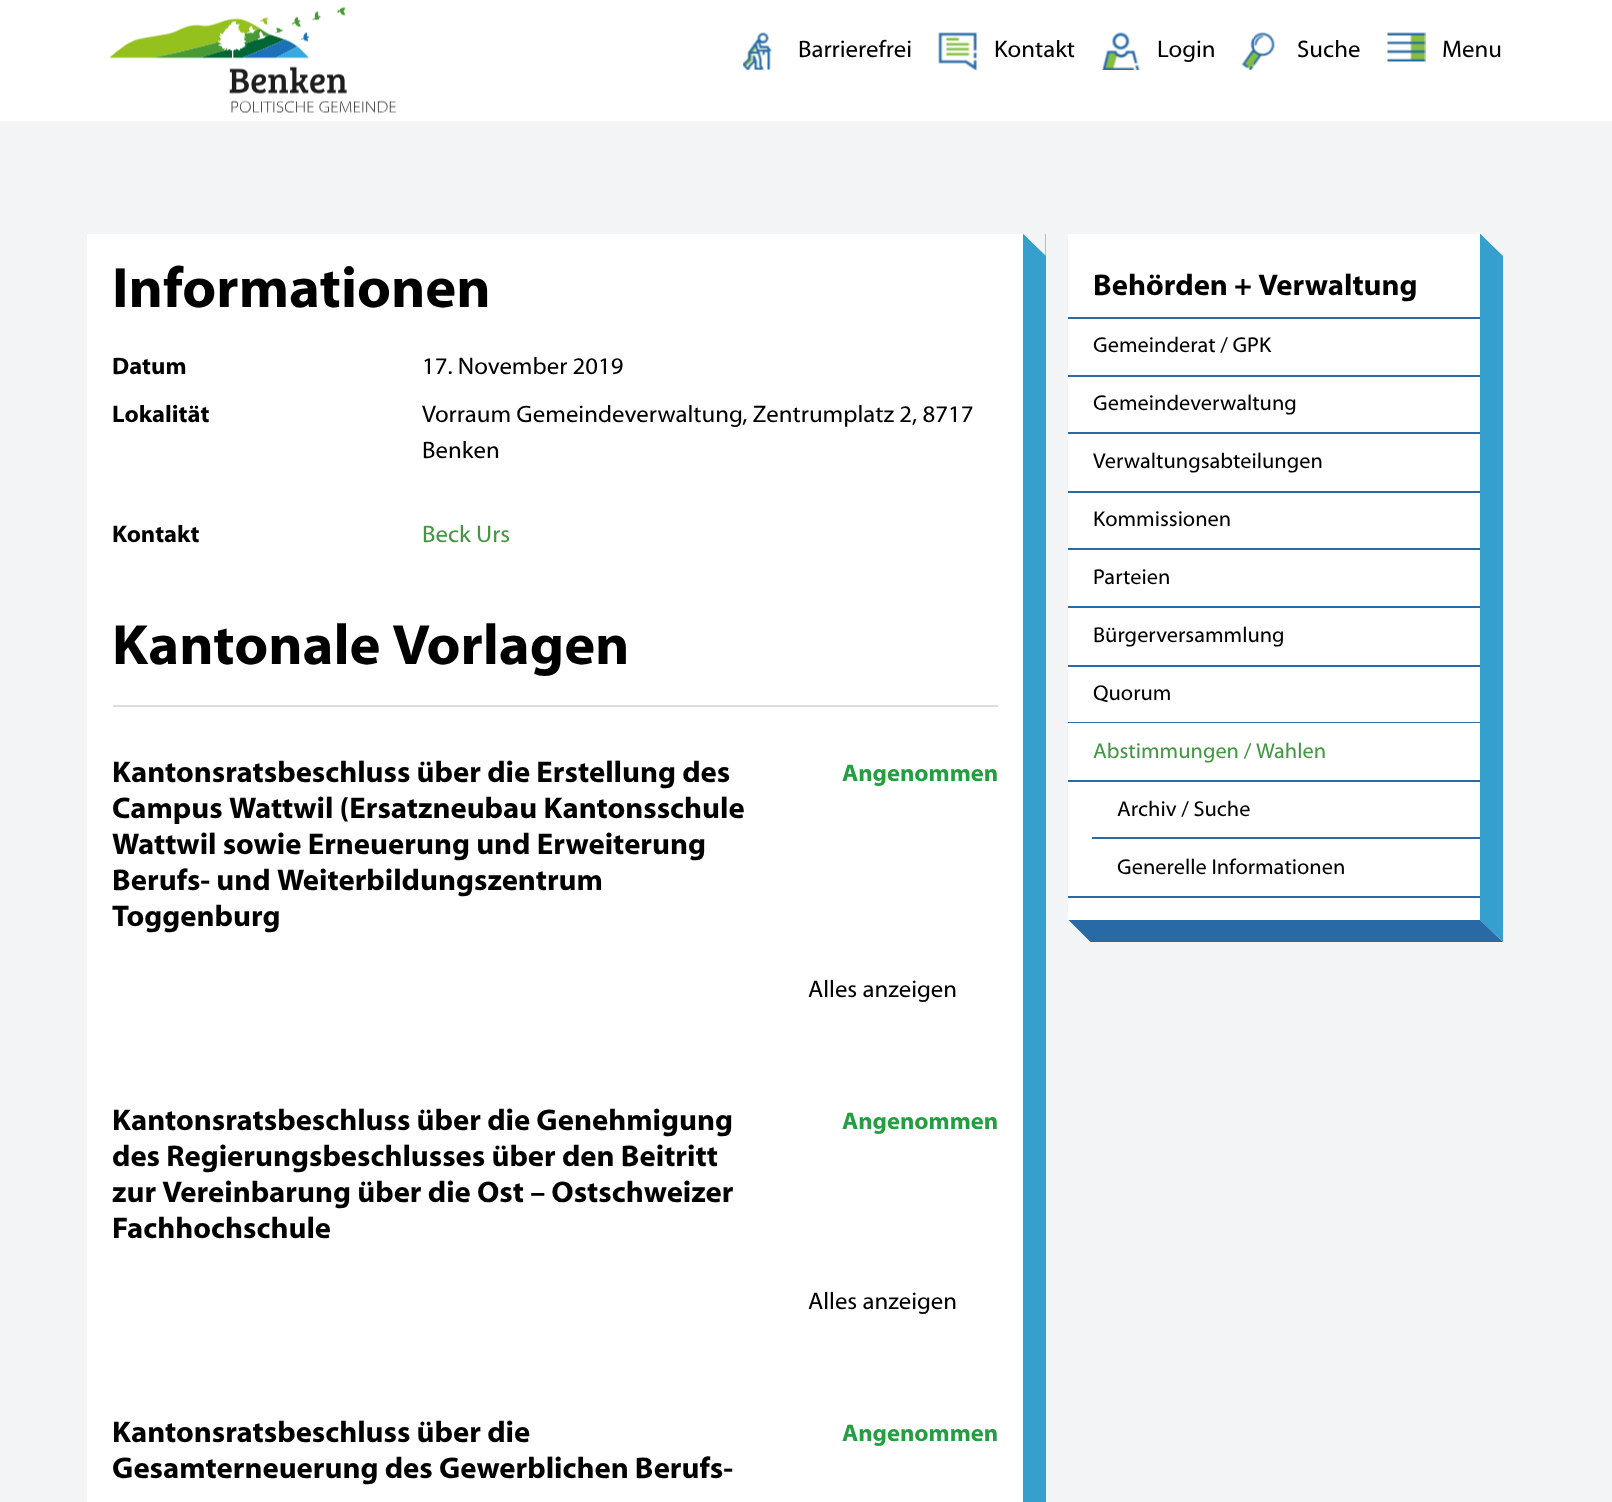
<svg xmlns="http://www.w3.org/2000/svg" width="1612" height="1502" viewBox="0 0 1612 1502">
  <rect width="100%" height="100%" fill="rgb(242,244,245)"/>
  <rect x="0" y="0" width="1612" height="121" fill="rgb(255,255,255)"/>
  <image x="110" y="7" width="286" height="106" href="pic1.png"/>
  <image x="743" y="32" width="29" height="38" href="pic2.png"/>
  <text x="798" y="57" font-family="Myriad" font-size="24" fill="rgb(0,0,0)">Barrierefrei</text>
  <image x="938" y="32" width="39" height="38" href="pic3.png"/>
  <text x="994" y="57" font-family="Myriad" font-size="24" fill="rgb(0,0,0)">Kontakt</text>
  <image x="1102" y="32" width="38" height="38" href="pic4.png"/>
  <text x="1157" y="57" font-family="Myriad" font-size="24" fill="rgb(0,0,0)">Login</text>
  <image x="1241" y="32" width="34" height="38" href="pic5.png"/>
  <text x="1297" y="57" font-family="Myriad" font-size="24" fill="rgb(0,0,0)">Suche</text>
  <image x="1387" y="32" width="39" height="30" href="pic6.png"/>
  <text x="1442" y="57" font-family="Myriad" font-size="24" fill="rgb(0,0,0)">Menu</text>
  <rect x="87" y="234" width="936" height="1268" fill="rgb(255,255,255)"/>
  <path d="M1046 234V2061L1023 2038V234Z" fill="rgb(53,160,205)"/>
  <text x="112" y="307" font-family="Myriad" font-size="57.25" font-weight="bold" fill="rgb(0,0,0)">Informationen</text>
  <text x="112" y="374" font-family="Myriad" font-size="24" font-weight="bold" fill="rgb(0,0,0)">Datum</text>
  <text x="422" y="374" font-family="Myriad" font-size="24" fill="rgb(0,0,0)">17. November 2019</text>
  <text x="112" y="422" font-family="Myriad" font-size="24" font-weight="bold" fill="rgb(0,0,0)">Lokalität</text>
  <g font-family="Myriad" font-size="24" fill="rgb(0,0,0)">
    <text>
      <tspan x="422" y="422">Vorraum Gemeindeverwaltung, Zentrumplatz 2, 8717</tspan>
      <tspan x="422" y="458">Benken</tspan>
    </text>
  </g>
  <text x="112" y="542" font-family="Myriad" font-size="24" font-weight="bold" fill="rgb(0,0,0)">Kontakt</text>
  <text x="422" y="542" font-family="Myriad" font-size="24" fill="rgb(69,151,69)">Beck Urs</text>
  <text x="112" y="664" font-family="Myriad" font-size="57.25" font-weight="bold" fill="rgb(0,0,0)">Kantonale Vorlagen</text>
  <rect x="113" y="705" width="885" height="2" fill="rgb(221,221,221)"/>
  <g font-family="Myriad" font-size="30" font-weight="bold" fill="rgb(0,0,0)">
    <text>
      <tspan x="112" y="782">Kantonsratsbeschluss über die Erstellung des</tspan>
      <tspan x="112" y="818">Campus Wattwil (Ersatzneubau Kantonsschule</tspan>
      <tspan x="112" y="854">Wattwil sowie Erneuerung und Erweiterung</tspan>
      <tspan x="112" y="890">Berufs- und Weiterbildungszentrum</tspan>
      <tspan x="112" y="926">Toggenburg</tspan>
    </text>
  </g>
  <text x="842" y="781" font-family="Myriad" font-size="24" font-weight="bold" fill="rgb(37,157,65)">Angenommen</text>
  <text x="808" y="997" font-family="Myriad" font-size="24" fill="rgb(0,0,0)">Alles anzeigen</text>
  <g font-family="Myriad" font-size="30" font-weight="bold" fill="rgb(0,0,0)">
    <text>
      <tspan x="112" y="1130">Kantonsratsbeschluss über die Genehmigung</tspan>
      <tspan x="112" y="1166">des Regierungsbeschlusses über den Beitritt</tspan>
      <tspan x="112" y="1202">zur Vereinbarung über die Ost – Ostschweizer</tspan>
      <tspan x="112" y="1238">Fachhochschule</tspan>
    </text>
  </g>
  <text x="842" y="1129" font-family="Myriad" font-size="24" font-weight="bold" fill="rgb(37,157,65)">Angenommen</text>
  <text x="808" y="1309" font-family="Myriad" font-size="24" fill="rgb(0,0,0)">Alles anzeigen</text>
  <g font-family="Myriad" font-size="30" font-weight="bold" fill="rgb(0,0,0)">
    <text>
      <tspan x="112" y="1442">Kantonsratsbeschluss über die</tspan>
      <tspan x="112" y="1478">Gesamterneuerung des Gewerblichen Berufs-</tspan>
    </text>
  </g>
  <text x="842" y="1441" font-family="Myriad" font-size="24" font-weight="bold" fill="rgb(37,157,65)">Angenommen</text>
  <path d="M1023 234H1045.5V256.5Z" fill="rgb(242,244,245)"/>
  <path d="M1023 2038V234L1046 256V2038Z" fill="rgb(53,160,205)"/>
  <rect x="1068" y="234" width="435" height="708" fill="rgb(255,255,255)"/>
  <path d="M1503 234V942L1480 920V234Z" fill="rgb(53,160,205)"/>
  <path d="M1503 942H1068V920H1480Z" fill="rgb(40,106,166)"/>
  <rect x="1068" y="317" width="413" height="2" fill="rgb(40,106,166)"/>
  <text x="1093" y="295" font-family="Myriad" font-size="30" font-weight="bold" fill="rgb(0,0,0)">Behörden + Verwaltung</text>
  <path d="M1480.5 234H1503V256.5Z" fill="rgb(242,244,245)"/>
  <rect x="1068" y="375" width="413" height="2" fill="rgb(40,106,166)"/>
  <rect x="1068" y="432" width="413" height="2" fill="rgb(40,106,166)"/>
  <rect x="1068" y="491" width="413" height="2" fill="rgb(40,106,166)"/>
  <rect x="1068" y="548" width="413" height="2" fill="rgb(40,106,166)"/>
  <rect x="1068" y="606" width="413" height="2" fill="rgb(40,106,166)"/>
  <rect x="1068" y="665" width="413" height="2" fill="rgb(40,106,166)"/>
  <rect x="1068" y="722" width="413" height="1" fill="rgb(40,106,166)"/>
  <rect x="1068" y="896" width="413" height="2" fill="rgb(40,106,166)"/>
  <rect x="1068" y="780" width="413" height="2" fill="rgb(40,106,166)"/>
  <rect x="1092" y="837" width="389" height="2" fill="rgb(40,106,166)"/>
  <path d="M1480 920V234L1503 256V920Z" fill="rgb(53,160,205)"/>
  <g font-family="Myriad" font-size="21.6" fill="rgb(0,0,0)">
    <text x="1093" y="352">Gemeinderat / GPK</text>
    <text x="1093" y="410">Gemeindeverwaltung</text>
    <text x="1093" y="468">Verwaltungsabteilungen</text>
    <text x="1093" y="526">Kommissionen</text>
    <text x="1093" y="584">Parteien</text>
    <text x="1093" y="642">Bürgerversammlung</text>
    <text x="1093" y="700">Quorum</text>
  </g>
  <text x="1093" y="758" font-family="Myriad" font-size="21.6" fill="rgb(69,151,69)">Abstimmungen / Wahlen</text>
  <g font-family="Myriad" font-size="21.6" fill="rgb(0,0,0)">
    <text x="1117" y="816">Archiv / Suche</text>
    <text x="1117" y="874">Generelle Informationen</text>
  </g>
  <path d="M1068 942V919.5L1090.5 942Z" fill="rgb(242,244,245)"/>
</svg>
